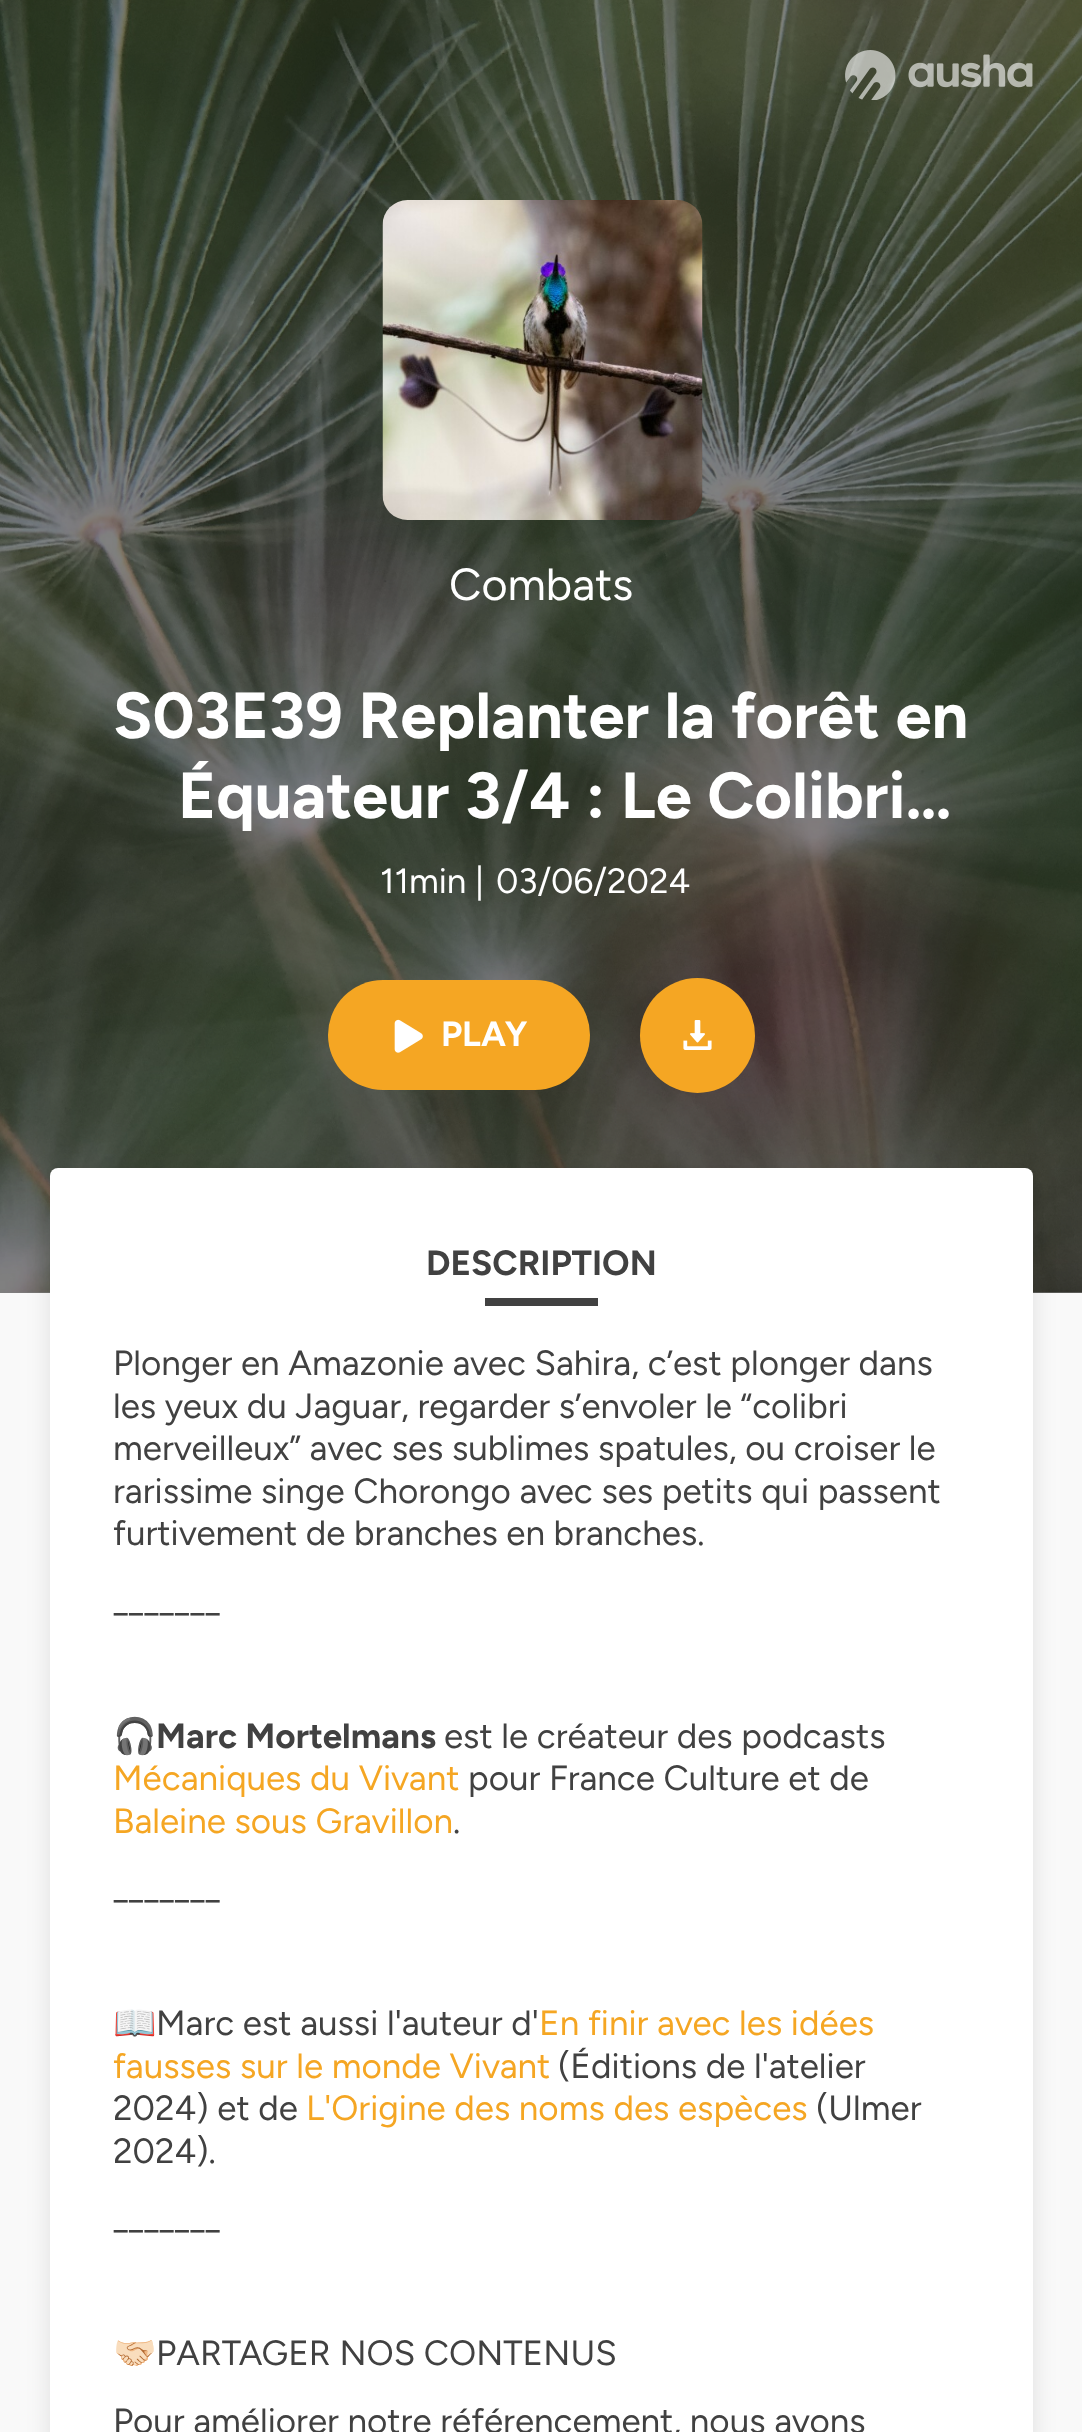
<svg xmlns="http://www.w3.org/2000/svg" width="1082" height="2432" viewBox="0 0 1082 2432">
  <defs>
    <clipPath id="clip1"><rect x="113" y="1343" width="857" height="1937"/></clipPath>
  </defs>
  <rect width="100%" height="100%" fill="rgb(128,128,128)"/>
  <image x="0" y="0" width="1082" height="1293" href="pic1.png"/>
  <image x="845" y="50" width="188" height="50" href="pic2.png"/>
  <image x="382" y="200" width="321" height="320" href="pic3.png"/>
  <text x="449" y="600" font-family="Figtree" font-size="45" fill="rgb(255,255,255)">Combats</text>
  <g font-family="Figtree" font-size="65" font-weight="bold" fill="rgb(255,255,255)">
    <text x="113" y="738">S03E39 Replanter la forêt en</text>
    <text x="178" y="818">Équateur 3/4 : Le Colibri…</text>
  </g>
  <g font-family="Figtree" font-size="35" fill="rgb(255,255,255)">
    <text x="380" y="893">11min |</text>
    <text x="496" y="893">03/06/2024</text>
  </g>
  <rect x="328" y="980" width="262" height="110" rx="55" fill="rgb(245,166,35)"/>
  <image x="394" y="1019" width="29" height="34" href="pic4.png"/>
  <text x="441" y="1046" font-family="Figtree" font-size="35" font-weight="bold" fill="rgb(255,255,255)">PLAY</text>
  <circle cx="697.5" cy="1035.5" r="57.5" fill="rgb(245,166,35)"/>
  <image x="683" y="1020" width="29" height="30" href="pic5.png"/>
  <rect x="0" y="1293" width="1082" height="1139" fill="rgb(249,249,249)"/>
  <rect x="50" y="1173" width="983" height="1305" rx="8" fill="rgba(0,0,0,0.1)" filter="blur(12.5px)"/>
  <rect x="50" y="1168" width="983" height="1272" rx="8" fill="rgb(255,255,255)"/>
  <text x="426" y="1275" font-family="Figtree" font-size="35" font-weight="bold" fill="rgb(65,65,65)">DESCRIPTION</text>
  <rect x="485" y="1298" width="113" height="8" fill="rgb(65,65,65)"/>
  <g font-family="Figtree" font-size="35" fill="rgb(65,65,65)">
    <text>
      <tspan x="113" y="1375">Plonger en Amazonie avec Sahira, c’est plonger dans</tspan>
      <tspan x="113" y="1418">les yeux du Jaguar, regarder s’envoler le “colibri</tspan>
      <tspan x="113" y="1460">merveilleux” avec ses sublimes spatules, ou croiser le</tspan>
      <tspan x="113" y="1503">rarissime singe Chorongo avec ses petits qui passent</tspan>
      <tspan x="113" y="1545">furtivement de branches en branches.</tspan>
      <tspan x="113" y="1613">_______</tspan>
    </text>
  </g>
  <g clip-path="url(#clip1)">
    <text x="113" y="1748" font-family="Noto Color Emoji" font-size="35" font-weight="bold" fill="rgb(65,65,65)">🎧</text>
  </g>
  <text x="156" y="1748" font-family="Figtree" font-size="35" font-weight="bold" fill="rgb(65,65,65)">Marc Mortelmans</text>
  <text x="444" y="1748" font-family="Figtree" font-size="35" fill="rgb(65,65,65)">est le créateur des podcasts</text>
  <text x="113" y="1790" font-family="Figtree" font-size="35" fill="rgb(245,166,35)">Mécaniques du Vivant</text>
  <text x="468" y="1790" font-family="Figtree" font-size="35" fill="rgb(65,65,65)">pour France Culture et de</text>
  <text x="113" y="1833" font-family="Figtree" font-size="35" fill="rgb(245,166,35)">Baleine sous Gravillon</text>
  <g font-family="Figtree" font-size="35" fill="rgb(65,65,65)">
    <text x="453" y="1833">.</text>
    <text x="113" y="1900">_______</text>
  </g>
  <g clip-path="url(#clip1)">
    <text x="113" y="2035" font-family="Noto Color Emoji" font-size="35" fill="rgb(65,65,65)">📖</text>
  </g>
  <text x="156" y="2035" font-family="Figtree" font-size="35" fill="rgb(65,65,65)">Marc est aussi l'auteur d'</text>
  <g font-family="Figtree" font-size="35" fill="rgb(245,166,35)">
    <text x="539" y="2035">En finir avec les idées</text>
    <text x="113" y="2078">fausses sur le monde Vivant</text>
  </g>
  <g font-family="Figtree" font-size="35" fill="rgb(65,65,65)">
    <text x="558" y="2078">(Éditions de l'atelier</text>
    <text x="113" y="2120">2024) et de</text>
  </g>
  <text x="306" y="2120" font-family="Figtree" font-size="35" fill="rgb(245,166,35)">L'Origine des noms des espèces</text>
  <g font-family="Figtree" font-size="35" fill="rgb(65,65,65)">
    <text x="816" y="2120">(Ulmer</text>
    <text>
      <tspan x="113" y="2163">2024).</tspan>
      <tspan x="113" y="2230">_______</tspan>
    </text>
  </g>
  <g clip-path="url(#clip1)">
    <text x="113" y="2365" font-family="Noto Color Emoji" font-size="35" fill="rgb(65,65,65)">🤝🏻</text>
  </g>
  <g font-family="Figtree" font-size="35" fill="rgb(65,65,65)">
    <text x="156" y="2365">PARTAGER NOS CONTENUS</text>
    <text x="113" y="2433">Pour améliorer notre référencement, nous avons</text>
  </g>
</svg>
